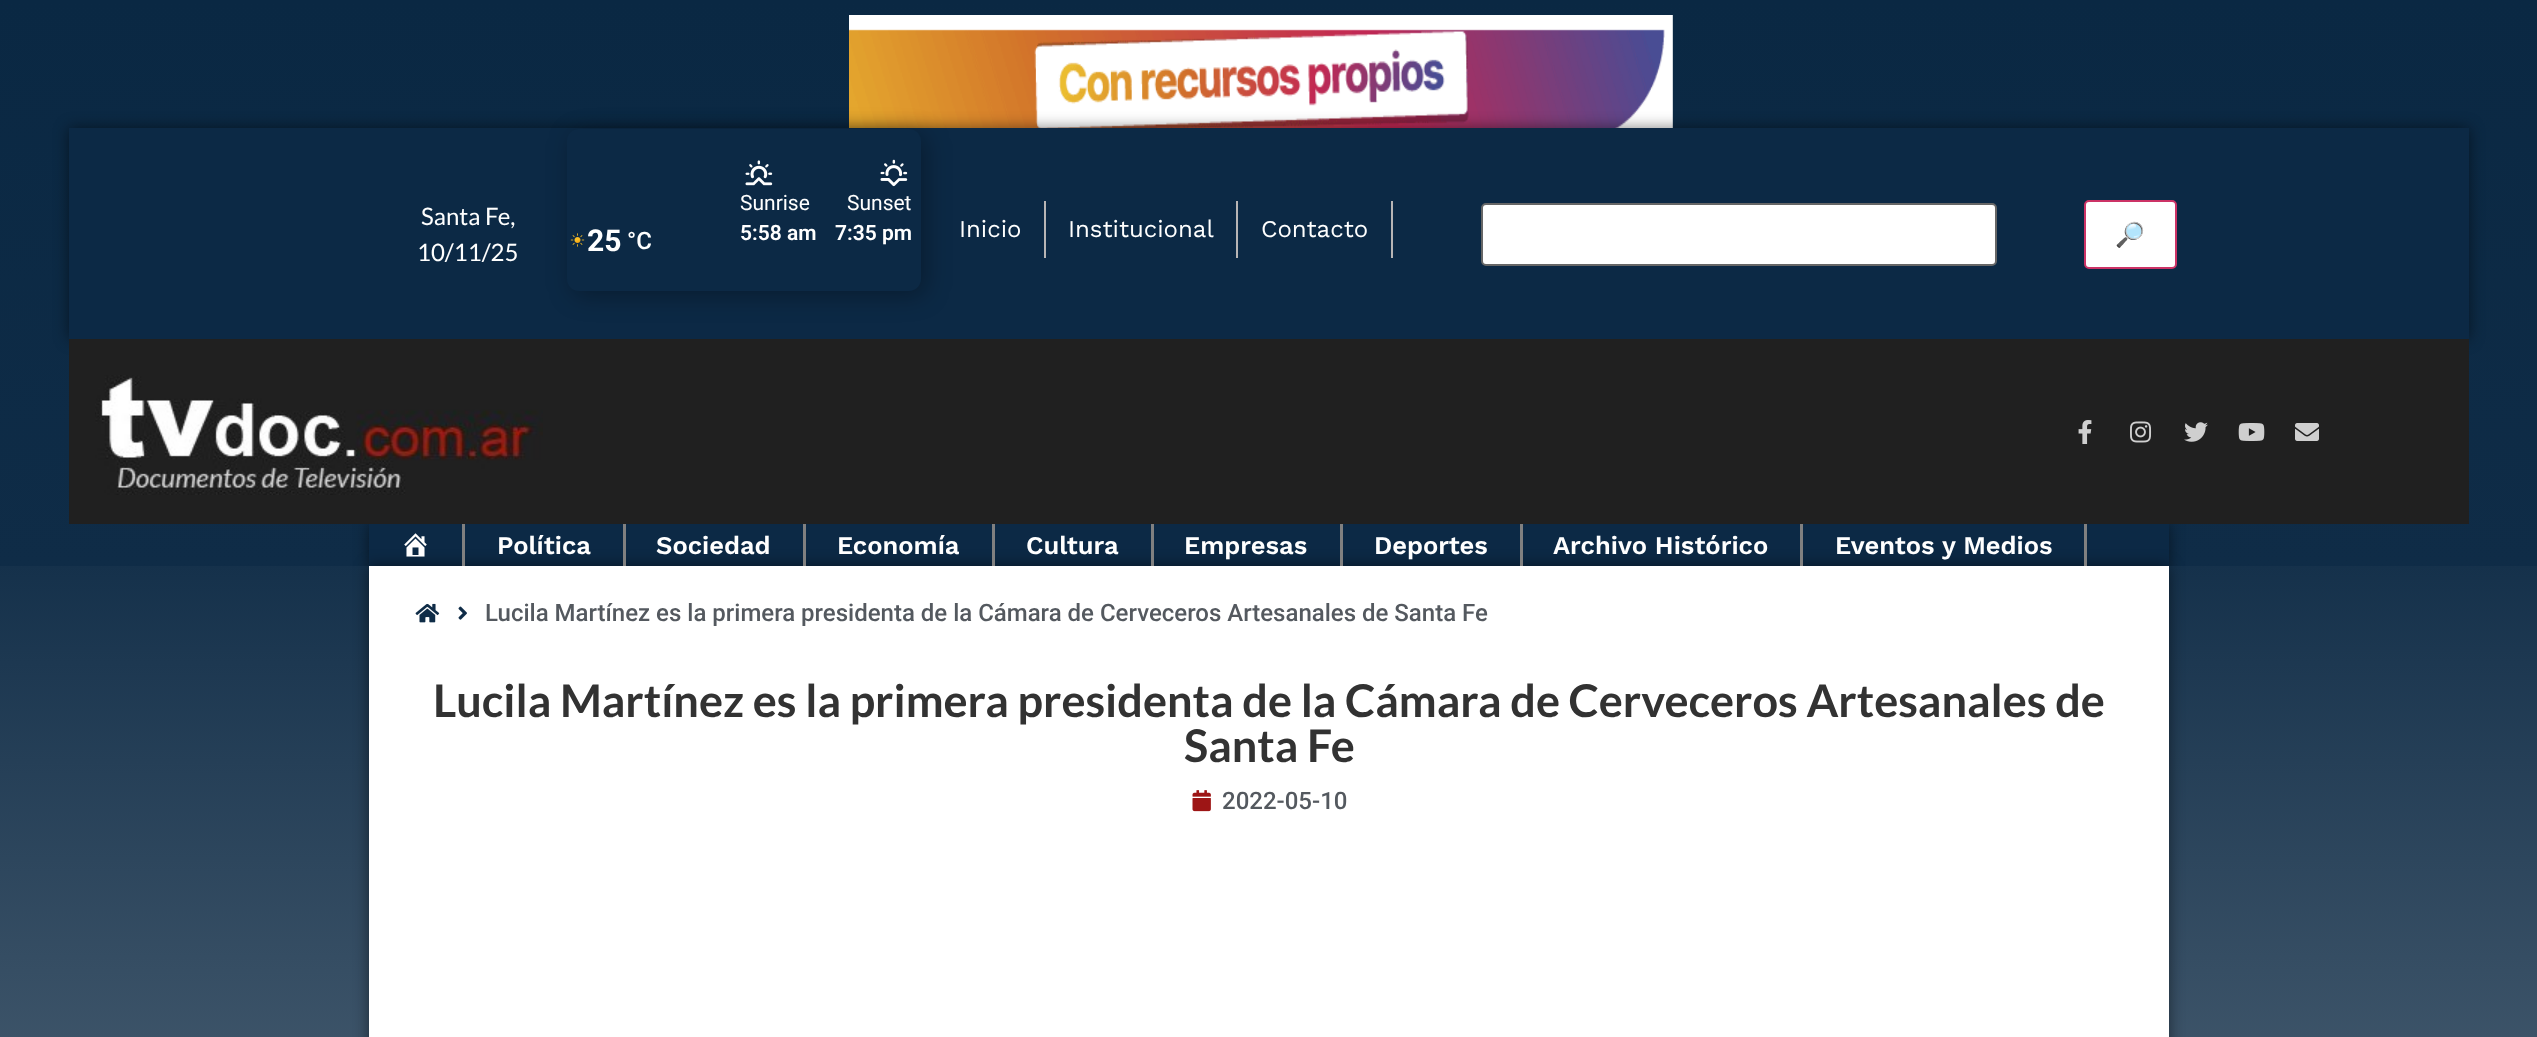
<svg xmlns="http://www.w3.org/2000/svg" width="2537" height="1037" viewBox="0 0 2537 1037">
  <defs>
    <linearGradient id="g1" gradientUnits="userSpaceOnUse" x1="1269" y1="0" x2="1269" y2="566"><stop offset="0" stop-color="rgb(10,40,67)"/><stop offset="1" stop-color="rgb(15,44,71)"/></linearGradient>
    <clipPath id="clip1"><path d="M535 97H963V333H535ZM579 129H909C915.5 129 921 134.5 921 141V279C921 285.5 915.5 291 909 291H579C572.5 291 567 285.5 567 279V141C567 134.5 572.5 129 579 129Z" clip-rule="evenodd"/></clipPath>
    <linearGradient id="g2" gradientUnits="userSpaceOnUse" x1="1269" y1="565" x2="1269" y2="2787"><stop offset="0" stop-color="rgb(21,49,75)"/><stop offset="1" stop-color="rgb(202,208,211)"/></linearGradient>
  </defs>
  <rect width="100%" height="100%" fill="rgb(255,255,255)"/>
  <rect x="0" y="0" width="2537" height="566" fill="url(#g1)"/>
  <image x="849" y="15" width="824" height="113" href="pic1.png"/>
  <rect x="69" y="128" width="2400" height="211" fill="rgba(0,0,0,0.5)" filter="blur(7.5px)"/>
  <rect x="69" y="128" width="2400" height="211" fill="rgb(12,41,69)"/>
  <g font-family="Lato" font-size="24" fill="rgb(255,255,255)">
    <text x="421" y="225">Santa Fe,</text>
    <text x="417" y="261">10/11/25</text>
  </g>
  <g clip-path="url(#clip1)">
    <rect x="572" y="134" width="354" height="162" rx="12" fill="rgba(0,0,0,0.3)" filter="blur(12px)"/>
  </g>
  <image x="570" y="233" width="15" height="14" href="pic2.png"/>
  <text x="587" y="251" font-family="Roboto" font-size="30" font-weight="bold" fill="rgb(255,255,255)">25</text>
  <text x="627" y="249" font-family="Roboto" font-size="24" font-weight="500" fill="rgb(255,255,255)">°C</text>
  <image x="745" y="160" width="28" height="26" href="pic3.png"/>
  <text x="740" y="210" font-family="Roboto" font-size="21" fill="rgb(255,255,255)">Sunrise</text>
  <text x="740" y="240" font-family="Roboto" font-size="21" font-weight="600" fill="rgb(255,255,255)">5:58 am</text>
  <image x="880" y="159" width="28" height="28" href="pic4.png"/>
  <text x="847" y="210" font-family="Roboto" font-size="21" fill="rgb(255,255,255)">Sunset</text>
  <text x="835" y="240" font-family="Roboto" font-size="21" font-weight="600" fill="rgb(255,255,255)">7:35 pm</text>
  <rect x="1044" y="201" width="2" height="57" fill="rgb(184,181,181)"/>
  <text x="959" y="237" font-family="Work Sans" font-size="24" fill="rgb(255,255,255)">Inicio</text>
  <rect x="1236" y="201" width="2" height="57" fill="rgb(184,181,181)"/>
  <text x="1068" y="237" font-family="Work Sans" font-size="24" fill="rgb(255,255,255)">Institucional</text>
  <rect x="1391" y="201" width="2" height="57" fill="rgb(184,181,181)"/>
  <text x="1261" y="237" font-family="Work Sans" font-size="24" fill="rgb(255,255,255)">Contacto</text>
  <rect x="1482" y="204" width="514" height="61" rx="4" fill="rgb(255,255,255)" stroke="rgb(102,102,102)" stroke-width="2"/>
  <rect x="2085" y="201" width="91" height="67" rx="4" fill="rgb(255,255,255)" stroke="rgb(204,51,102)" stroke-width="2"/>
  <text x="2115" y="243" font-family="Noto Color Emoji" font-size="24" font-weight="bold" fill="rgb(0,0,0)">🔎</text>
  <rect x="369" y="524" width="1800" height="42" fill="rgba(0,0,0,0.5)" filter="blur(7.5px)"/>
  <rect x="69" y="339" width="2400" height="185" fill="rgb(32,32,32)"/>
  <image x="95" y="375" width="448" height="120" href="pic5.png"/>
  <image x="2078" y="420" width="14" height="24" href="pic6.png"/>
  <image x="2130" y="421" width="22" height="22" href="pic7.png"/>
  <image x="2184" y="422" width="24" height="20" href="pic8.png"/>
  <image x="2238" y="423" width="27" height="18" href="pic9.png"/>
  <image x="2295" y="423" width="24" height="18" href="pic10.png"/>
  <rect x="369" y="524" width="1800" height="42" fill="rgb(12,41,69)"/>
  <rect x="0" y="566" width="2537" height="471" fill="url(#g2)"/>
  <rect x="369" y="566" width="1800" height="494" fill="rgba(0,0,0,0.5)" filter="blur(7.5px)"/>
  <rect x="462" y="524" width="3" height="42" fill="rgb(128,128,128)"/>
  <image x="404" y="533" width="23" height="24" href="pic11.png"/>
  <rect x="623" y="524" width="3" height="42" fill="rgb(128,128,128)"/>
  <text x="497" y="554" font-family="Work Sans" font-size="25.5" font-weight="600" fill="rgb(255,255,255)">Política</text>
  <rect x="803" y="524" width="3" height="42" fill="rgb(128,128,128)"/>
  <text x="656" y="554" font-family="Work Sans" font-size="25.5" font-weight="600" fill="rgb(255,255,255)">Sociedad</text>
  <rect x="992" y="524" width="3" height="42" fill="rgb(128,128,128)"/>
  <text x="837" y="554" font-family="Work Sans" font-size="25.5" font-weight="600" fill="rgb(255,255,255)">Economía</text>
  <rect x="1151" y="524" width="3" height="42" fill="rgb(128,128,128)"/>
  <text x="1026" y="554" font-family="Work Sans" font-size="25.5" font-weight="600" fill="rgb(255,255,255)">Cultura</text>
  <rect x="1340" y="524" width="3" height="42" fill="rgb(128,128,128)"/>
  <text x="1184" y="554" font-family="Work Sans" font-size="25.5" font-weight="600" fill="rgb(255,255,255)">Empresas</text>
  <rect x="1520" y="524" width="3" height="42" fill="rgb(128,128,128)"/>
  <text x="1374" y="554" font-family="Work Sans" font-size="25.5" font-weight="600" fill="rgb(255,255,255)">Deportes</text>
  <rect x="1800" y="524" width="3" height="42" fill="rgb(128,128,128)"/>
  <text x="1553" y="554" font-family="Work Sans" font-size="25.5" font-weight="600" fill="rgb(255,255,255)">Archivo Histórico</text>
  <rect x="2084" y="524" width="3" height="42" fill="rgb(128,128,128)"/>
  <text x="1835" y="554" font-family="Work Sans" font-size="25.5" font-weight="600" fill="rgb(255,255,255)">Eventos y Medios</text>
  <rect x="369" y="566" width="1800" height="471" fill="rgb(255,255,255)"/>
  <image x="415" y="603" width="25" height="20" href="pic12.png"/>
  <image x="458" y="606" width="9" height="14" href="pic13.png"/>
  <text x="485" y="621" font-family="Roboto" font-size="24" font-weight="500" fill="rgb(84,89,95)">Lucila Martínez es la primera presidenta de la Cámara de Cerveceros Artesanales de Santa Fe</text>
  <g font-family="Lato" font-size="45" font-weight="bold" fill="rgb(50,50,50)">
    <text x="433" y="717">Lucila Martínez es la primera presidenta de la Cámara de Cerveceros Artesanales de</text>
    <text x="1184" y="762">Santa Fe</text>
  </g>
  <image x="1192" y="790" width="19" height="22" href="pic14.png"/>
  <text x="1222" y="809" font-family="Roboto" font-size="24" font-weight="500" fill="rgb(84,89,95)">2022-05-10</text>
</svg>
